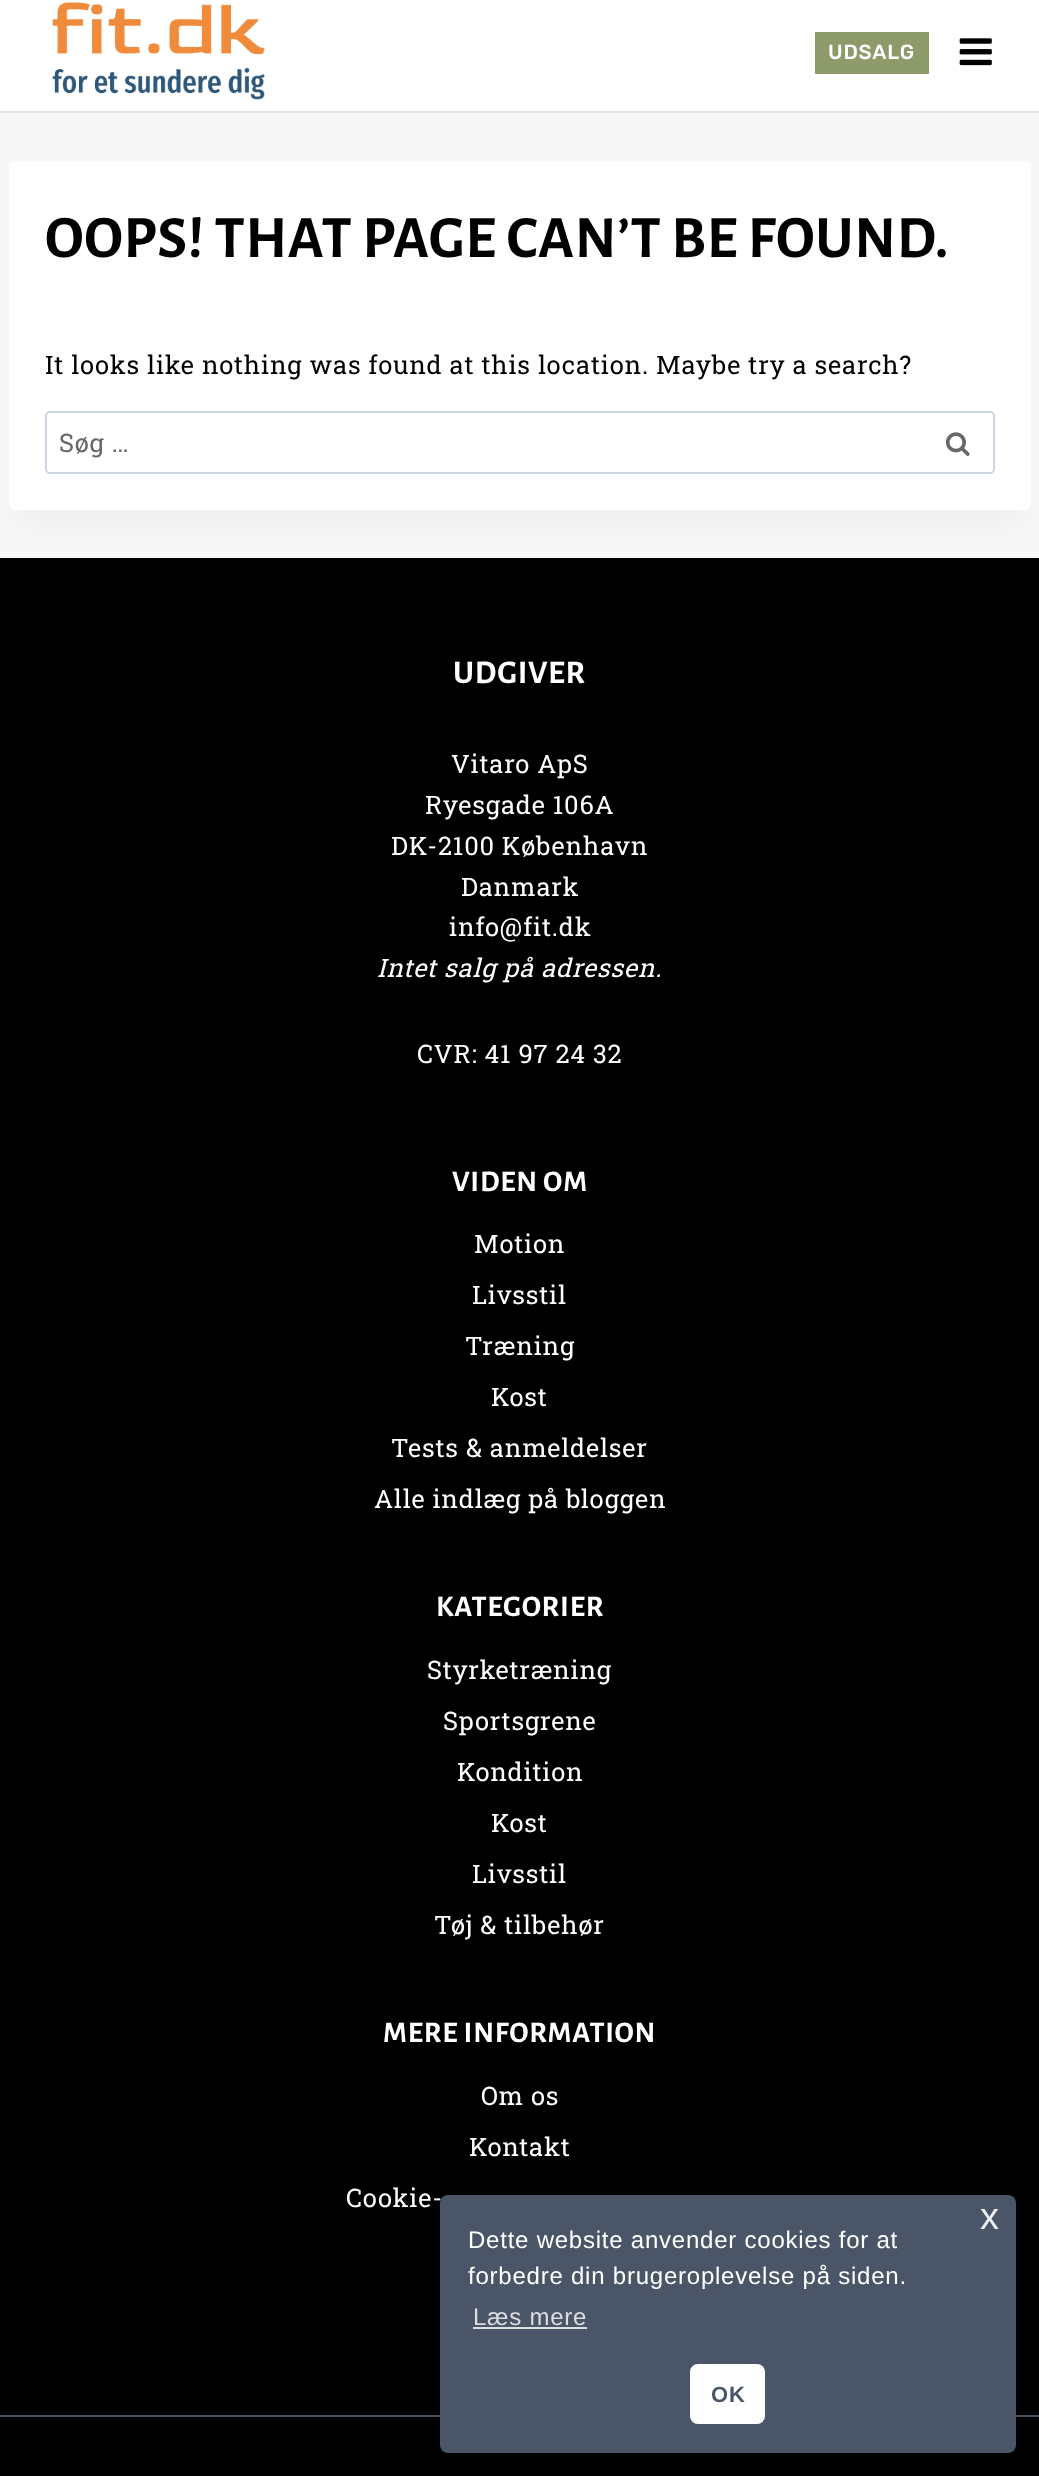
<svg xmlns="http://www.w3.org/2000/svg" width="1039" height="2476" viewBox="0 0 1039 2476">
  <rect width="100%" height="100%" fill="rgb(247,247,247)"/>
  <rect x="0" y="0" width="1039" height="111" fill="rgb(255,255,255)"/>
  <rect x="0" y="111" width="1039" height="2" fill="rgb(232,223,224)"/>
  <image x="52" y="2" width="213" height="98" href="pic1.png"/>
  <rect x="815" y="32" width="114" height="42" fill="rgb(141,155,106)"/>
  <text x="828" y="59" font-family="Rubik" font-size="20.5" font-weight="500" letter-spacing="0.77" fill="rgb(255,255,255)">UDSALG</text>
  <image x="959" y="38" width="33" height="28" href="pic2.png"/>
  <rect x="0" y="558" width="1039" height="1918" fill="rgb(0,0,0)"/>
  <rect x="24" y="198" width="992" height="320" fill="rgba(0,0,0,0.05)" filter="blur(19px)"/>
  <rect x="9" y="161" width="1022" height="349" rx="6" fill="rgb(255,255,255)"/>
  <text x="45" y="257" font-family="Alegreya Sans" font-size="60" font-weight="bold" letter-spacing="0.77" fill="rgb(0,0,0)">OOPS! THAT PAGE CAN’T BE FOUND.</text>
  <text x="45" y="374" font-family="Roboto Slab" font-size="25.5" letter-spacing="0.77" fill="rgb(0,0,0)">It looks like nothing was found at this location. Maybe try a search?</text>
  <rect x="46" y="412" width="948" height="61" rx="4" fill="none" stroke="rgb(203,213,224)" stroke-width="2"/>
  <text x="59" y="452" font-family="Roboto Slab" font-size="25.5" letter-spacing="0.77" fill="rgb(103,103,103)">Søg …</text>
  <image x="945" y="432" width="25" height="24" href="pic3.png"/>
  <text x="453" y="683" font-family="Alegreya Sans" font-size="33" font-weight="bold" letter-spacing="0.77" fill="rgb(255,255,255)">UDGIVER</text>
  <g font-family="Roboto Slab" font-size="25.5" letter-spacing="0.77" fill="rgb(255,255,255)">
    <text x="451" y="773">Vitaro ApS</text>
    <text x="425" y="814">Ryesgade 106A</text>
    <text x="391" y="855">DK-2100 København</text>
    <text x="461" y="896">Danmark</text>
    <text x="449" y="936">info@fit.dk</text>
  </g>
  <text x="377" y="977" font-family="Roboto Slab" font-size="25.5" font-style="italic" letter-spacing="0.77" fill="rgb(255,255,255)">Intet salg på adressen.</text>
  <text x="417" y="1063" font-family="Roboto Slab" font-size="25.5" letter-spacing="0.77" fill="rgb(255,255,255)">CVR: 41 97 24 32</text>
  <text x="452" y="1191" font-family="Alegreya Sans" font-size="30" font-weight="bold" letter-spacing="0.77" fill="rgb(255,255,255)">VIDEN OM</text>
  <g font-family="Roboto Slab" font-size="25.5" letter-spacing="0.77" fill="rgb(255,255,255)">
    <text x="474" y="1253">Motion</text>
    <text x="472" y="1304">Livsstil</text>
    <text x="465" y="1355">Træning</text>
    <text x="491" y="1406">Kost</text>
    <text x="391" y="1457">Tests &amp; anmeldelser</text>
    <text x="374" y="1508">Alle indlæg på bloggen</text>
  </g>
  <text x="436" y="1616" font-family="Alegreya Sans" font-size="30" font-weight="bold" letter-spacing="0.77" fill="rgb(255,255,255)">KATEGORIER</text>
  <g font-family="Roboto Slab" font-size="25.5" letter-spacing="0.77" fill="rgb(255,255,255)">
    <text x="427" y="1679">Styrketræning</text>
    <text x="443" y="1730">Sportsgrene</text>
    <text x="457" y="1781">Kondition</text>
    <text x="491" y="1832">Kost</text>
    <text x="472" y="1883">Livsstil</text>
    <text x="434" y="1934">Tøj &amp; tilbehør</text>
  </g>
  <text x="383" y="2042" font-family="Alegreya Sans" font-size="30" font-weight="bold" letter-spacing="0.77" fill="rgb(255,255,255)">MERE INFORMATION</text>
  <g font-family="Roboto Slab" font-size="25.5" letter-spacing="0.77" fill="rgb(255,255,255)">
    <text x="481" y="2105">Om os</text>
    <text x="469" y="2156">Kontakt</text>
    <text x="346" y="2207">Cookie-</text>
  </g>
  <rect x="0" y="2415" width="1039" height="2" fill="rgb(66,80,92)"/>
  <rect x="440" y="2195" width="576" height="258" rx="8" fill="rgb(74,86,103)"/>
  <text x="980" y="2229" font-family="Liberation Sans" font-size="38" letter-spacing="0.77" fill="rgb(237,238,240)">x</text>
  <g font-family="Liberation Sans" font-size="24" letter-spacing="0.77" fill="rgb(255,255,255)">
    <text>
      <tspan x="468" y="2248">Dette website anvender cookies for at</tspan>
      <tspan x="468" y="2284">forbedre din brugeroplevelse på siden.</tspan>
    </text>
  </g>
  <text x="473" y="2325" font-family="Liberation Sans" font-size="24" letter-spacing="0.77" fill="rgb(219,221,225)">Læs mere</text>
  <rect x="473" y="2327" width="114" height="2" fill="rgb(219,221,225)"/>
  <rect x="690" y="2364" width="75" height="60" rx="8" fill="rgb(255,255,255)"/>
  <text x="711" y="2402" font-family="Liberation Sans" font-size="22" font-weight="bold" letter-spacing="0.77" fill="rgb(74,86,103)">OK</text>
</svg>
